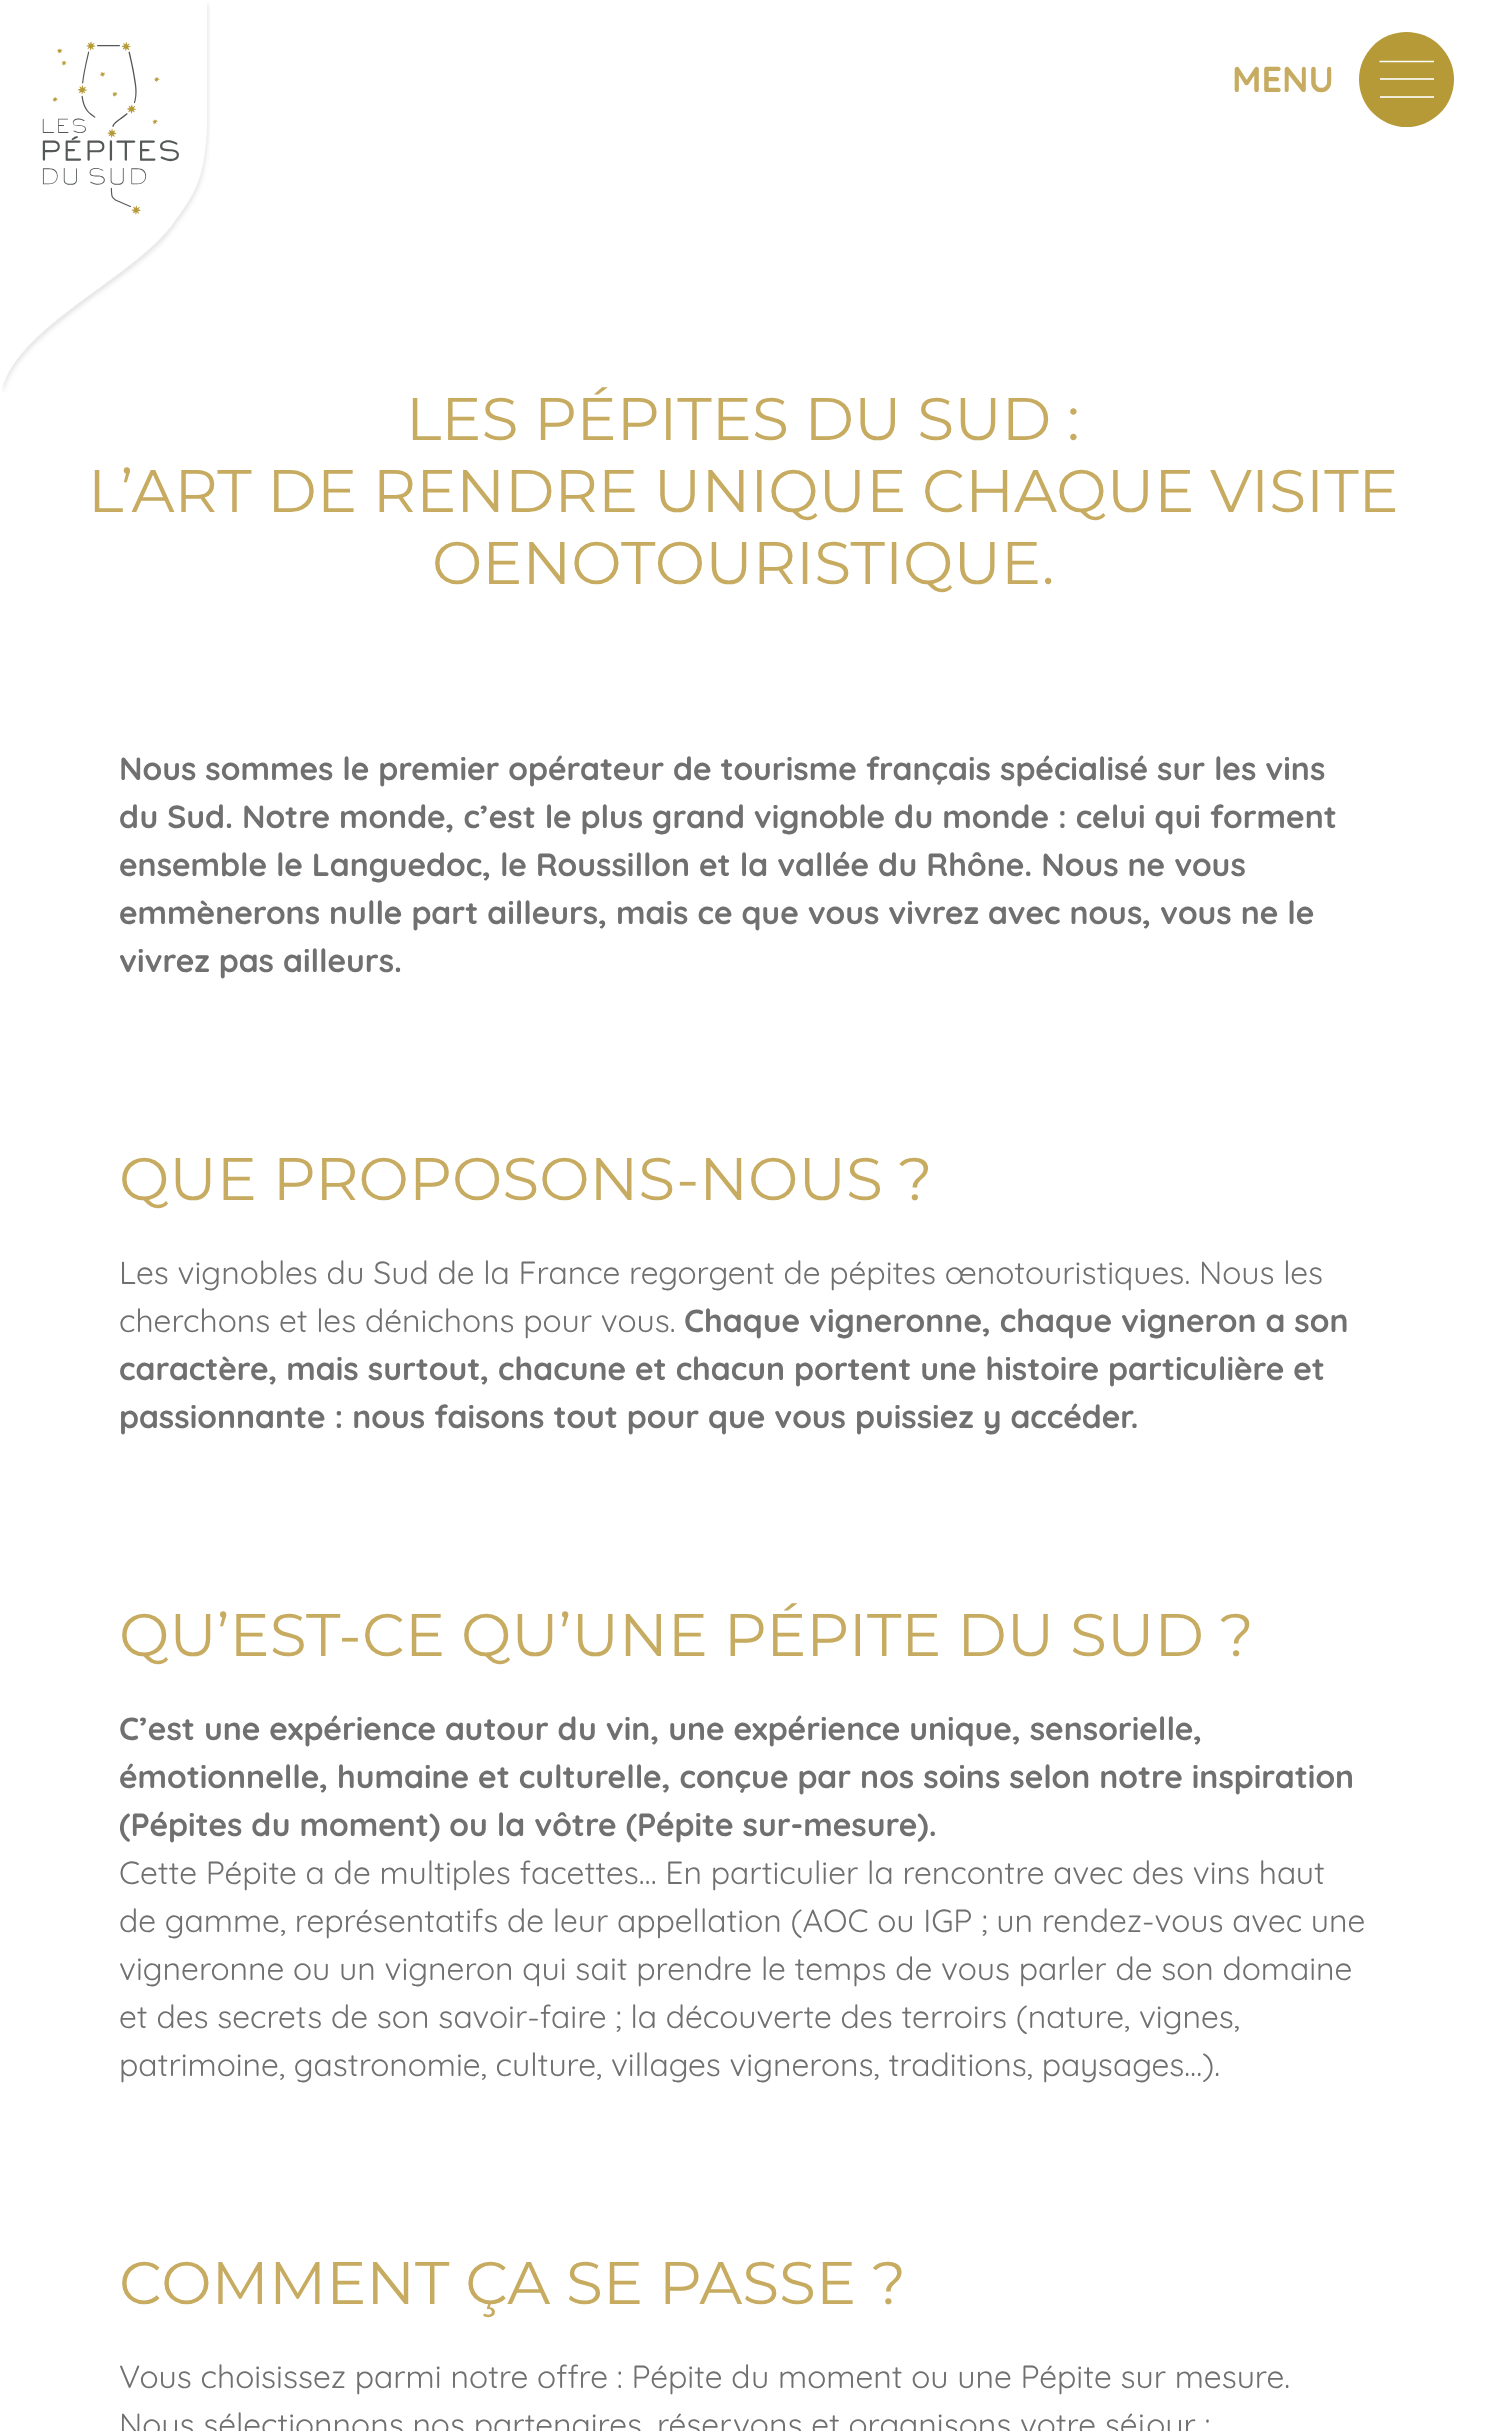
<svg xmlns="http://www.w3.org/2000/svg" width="1485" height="2431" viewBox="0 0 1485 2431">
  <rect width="100%" height="100%" fill="rgb(255,255,255)"/>
  <image x="2" y="2" width="208" height="390" href="pic1.png"/>
  <image x="42" y="41" width="137" height="174" href="pic2.png"/>
  <text x="1232" y="92" font-family="Quicksand" font-size="36" font-weight="bold" fill="rgb(198,171,97)">MENU</text>
  <circle cx="1406.5" cy="79.5" r="47.5" fill="rgb(182,154,55)"/>
  <path d="M1379.5 61.5H1434" fill="none" stroke="rgb(255,255,255)" stroke-width="1.6"/>
  <rect x="1380" y="78" width="54" height="2" fill="rgb(240,235,215)"/>
  <rect x="1380" y="96" width="54" height="2" fill="rgb(240,235,215)"/>
  <g font-family="Montserrat" font-size="60" fill="rgb(198,171,97)">
    <text x="406" y="440">LES PÉPITES DU SUD :</text>
    <text x="88" y="512">L’ART DE RENDRE UNIQUE CHAQUE VISITE</text>
    <text x="432" y="584">OENOTOURISTIQUE.</text>
  </g>
  <g font-family="Quicksand" font-size="32" font-weight="bold" fill="rgb(112,112,112)">
    <text>
      <tspan x="119" y="780">Nous sommes le premier opérateur de tourisme français spécialisé sur les vins</tspan>
      <tspan x="119" y="828">du Sud. Notre monde, c’est le plus grand vignoble du monde : celui qui forment</tspan>
      <tspan x="119" y="876">ensemble le Languedoc, le Roussillon et la vallée du Rhône. Nous ne vous</tspan>
      <tspan x="119" y="924">emmènerons nulle part ailleurs, mais ce que vous vivrez avec nous, vous ne le</tspan>
      <tspan x="119" y="972">vivrez pas ailleurs.</tspan>
    </text>
  </g>
  <text x="119" y="1200" font-family="Montserrat" font-size="60" fill="rgb(198,171,97)">QUE PROPOSONS-NOUS ?</text>
  <g font-family="Quicksand" font-size="32" fill="rgb(112,112,112)">
    <text>
      <tspan x="119" y="1284">Les vignobles du Sud de la France regorgent de pépites œnotouristiques. Nous les</tspan>
      <tspan x="119" y="1332">cherchons et les dénichons pour vous.</tspan>
    </text>
  </g>
  <g font-family="Quicksand" font-size="32" font-weight="bold" fill="rgb(112,112,112)">
    <text x="684" y="1332">Chaque vigneronne, chaque vigneron a son</text>
    <text>
      <tspan x="119" y="1380">caractère, mais surtout, chacune et chacun portent une histoire particulière et</tspan>
      <tspan x="119" y="1428">passionnante : nous faisons tout pour que vous puissiez y accéder.</tspan>
    </text>
  </g>
  <text x="119" y="1656" font-family="Montserrat" font-size="60" fill="rgb(198,171,97)">QU’EST-CE QU’UNE PÉPITE DU SUD ?</text>
  <g font-family="Quicksand" font-size="32" font-weight="bold" fill="rgb(112,112,112)">
    <text>
      <tspan x="119" y="1740">C’est une expérience autour du vin, une expérience unique, sensorielle,</tspan>
      <tspan x="119" y="1788">émotionnelle, humaine et culturelle, conçue par nos soins selon notre inspiration</tspan>
      <tspan x="119" y="1836">(Pépites du moment) ou la vôtre (Pépite sur-mesure).</tspan>
    </text>
  </g>
  <g font-family="Quicksand" font-size="32" fill="rgb(112,112,112)">
    <text>
      <tspan x="119" y="1884">Cette Pépite a de multiples facettes… En particulier la rencontre avec des vins haut</tspan>
      <tspan x="119" y="1932">de gamme, représentatifs de leur appellation (AOC ou IGP ; un rendez-vous avec une</tspan>
      <tspan x="119" y="1980">vigneronne ou un vigneron qui sait prendre le temps de vous parler de son domaine</tspan>
      <tspan x="119" y="2028">et des secrets de son savoir-faire ; la découverte des terroirs (nature, vignes,</tspan>
      <tspan x="119" y="2076">patrimoine, gastronomie, culture, villages vignerons, traditions, paysages…).</tspan>
    </text>
  </g>
  <text x="119" y="2304" font-family="Montserrat" font-size="60" fill="rgb(198,171,97)">COMMENT ÇA SE PASSE ?</text>
  <g font-family="Quicksand" font-size="32" fill="rgb(112,112,112)">
    <text>
      <tspan x="119" y="2388">Vous choisissez parmi notre offre : Pépite du moment ou une Pépite sur mesure.</tspan>
      <tspan x="119" y="2436">Nous sélectionnons nos partenaires, réservons et organisons votre séjour :</tspan>
    </text>
  </g>
</svg>
